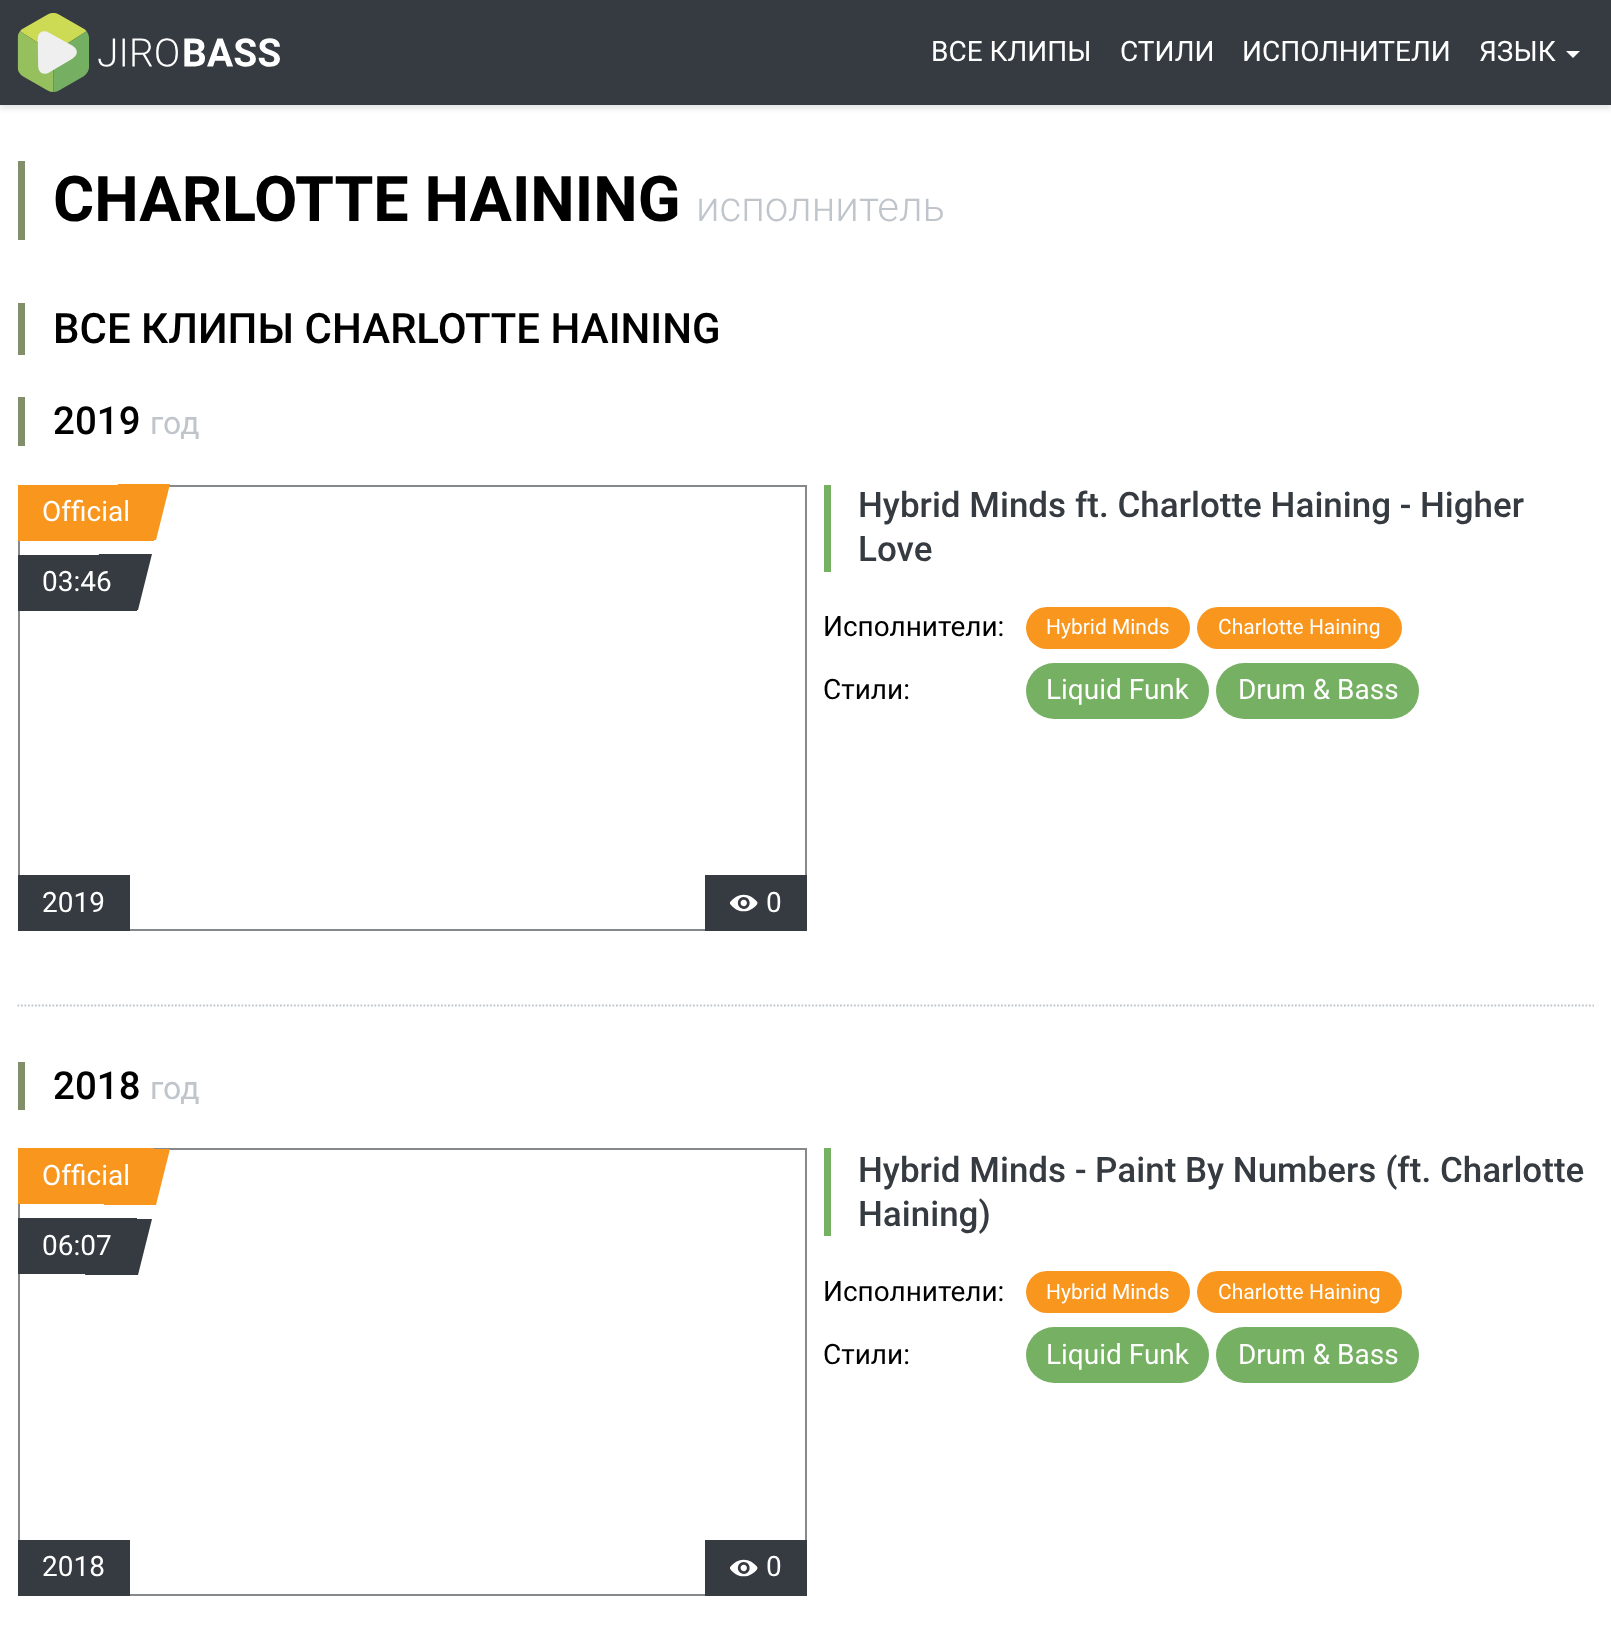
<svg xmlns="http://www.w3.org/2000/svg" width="1611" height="1644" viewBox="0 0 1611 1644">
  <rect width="100%" height="100%" fill="rgb(255,255,255)"/>
  <rect x="0" y="4" width="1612" height="105" fill="rgba(10,10,10,0.1)" filter="blur(2.5px)"/>
  <rect x="0" y="0" width="1611" height="105" fill="rgb(53,59,64)"/>
  <image x="17" y="13" width="263" height="79" href="pic1.png"/>
  <g font-family="Roboto" font-size="28" fill="rgb(255,255,255)">
    <text x="931" y="61">ВСЕ КЛИПЫ</text>
    <text x="1120" y="61">СТИЛИ</text>
    <text x="1242" y="61">ИСПОЛНИТЕЛИ</text>
    <text x="1479" y="61">ЯЗЫК</text>
  </g>
  <path d="M1566 51H1580L1573 58Z" fill="rgb(255,255,255)"/>
  <rect x="18" y="161" width="7" height="79" fill="rgb(129,144,107)"/>
  <text x="53" y="221" font-family="Roboto" font-size="63" font-weight="bold" fill="rgb(0,0,0)">CHARLOTTE HAINING</text>
  <text x="696" y="221" font-family="Roboto" font-size="42" font-weight="300" fill="rgb(191,197,202)">исполнитель</text>
  <rect x="18" y="303" width="7" height="52" fill="rgb(129,144,107)"/>
  <text x="53" y="343" font-family="Roboto" font-size="42" font-weight="500" fill="rgb(0,0,0)">ВСЕ КЛИПЫ CHARLOTTE HAINING</text>
  <path d="M17.5 1005.5H1594" fill="none" stroke="rgb(191,197,202)" stroke-width="1.8" stroke-dasharray="1.75 1.75"/>
  <rect x="18" y="397" width="7" height="49" fill="rgb(129,144,107)"/>
  <text x="53" y="434" font-family="Roboto" font-size="38.5" font-weight="500" fill="rgb(0,0,0)">2019</text>
  <text x="150" y="434" font-family="Roboto" font-size="32" fill="rgb(191,197,202)">год</text>
  <rect x="19" y="486" width="787" height="444" fill="none" stroke="rgb(134,137,140)" stroke-width="2"/>
  <rect x="18" y="485" width="136" height="56" fill="rgb(249,150,30)"/>
  <path d="M118 484H170L156 540H104Z" fill="rgb(249,150,30)"/>
  <text x="42" y="521" font-family="Roboto" font-size="28" fill="rgb(255,255,255)">Official</text>
  <rect x="18" y="555" width="119" height="56" fill="rgb(53,59,64)"/>
  <path d="M99 554H152L138 610H85Z" fill="rgb(53,59,64)"/>
  <text x="42" y="591" font-family="Roboto" font-size="28" fill="rgb(255,255,255)">03:46</text>
  <rect x="18" y="875" width="112" height="56" fill="rgb(53,59,64)"/>
  <text x="42" y="912" font-family="Roboto" font-size="28" fill="rgb(255,255,255)">2019</text>
  <rect x="705" y="875" width="102" height="56" fill="rgb(53,59,64)"/>
  <image x="730" y="894" width="28" height="18" href="pic2.png"/>
  <text x="766" y="912" font-family="Roboto" font-size="28" fill="rgb(255,255,255)">0</text>
  <rect x="824" y="485" width="7" height="87" fill="rgb(118,176,98)"/>
  <g font-family="Roboto" font-size="35" font-weight="500" fill="rgb(53,59,64)">
    <text>
      <tspan x="858" y="517">Hybrid Minds ft. Charlotte Haining - Higher</tspan>
      <tspan x="858" y="561">Love</tspan>
    </text>
  </g>
  <text x="823" y="636" font-family="Roboto" font-size="28" fill="rgb(0,0,0)">Исполнители:</text>
  <rect x="1026" y="607" width="164" height="42" rx="21" fill="rgb(249,150,30)"/>
  <text x="1046" y="634" font-family="Roboto" font-size="21" fill="rgb(255,255,255)">Hybrid Minds</text>
  <rect x="1197" y="607" width="205" height="42" rx="21" fill="rgb(249,150,30)"/>
  <text x="1218" y="634" font-family="Roboto" font-size="21" fill="rgb(255,255,255)">Charlotte Haining</text>
  <text x="823" y="699" font-family="Roboto" font-size="28" fill="rgb(0,0,0)">Стили:</text>
  <rect x="1026" y="663" width="183" height="56" rx="28" fill="rgb(118,176,98)"/>
  <text x="1046" y="699" font-family="Roboto" font-size="28" fill="rgb(255,255,255)">Liquid Funk</text>
  <rect x="1216" y="663" width="203" height="56" rx="28" fill="rgb(118,176,98)"/>
  <text x="1238" y="699" font-family="Roboto" font-size="28" fill="rgb(255,255,255)">Drum &amp; Bass</text>
  <rect x="18" y="1062" width="7" height="48" fill="rgb(129,144,107)"/>
  <text x="53" y="1099" font-family="Roboto" font-size="38.5" font-weight="500" fill="rgb(0,0,0)">2018</text>
  <text x="150" y="1099" font-family="Roboto" font-size="32" fill="rgb(191,197,202)">год</text>
  <rect x="19" y="1149" width="787" height="446" fill="none" stroke="rgb(134,137,140)" stroke-width="2"/>
  <rect x="18" y="1148" width="136" height="56" fill="rgb(249,150,30)"/>
  <path d="M118 1149H170L156 1205H104Z" fill="rgb(249,150,30)"/>
  <text x="42" y="1185" font-family="Roboto" font-size="28" fill="rgb(255,255,255)">Official</text>
  <rect x="18" y="1218" width="119" height="56" fill="rgb(53,59,64)"/>
  <path d="M99 1219H152L138 1275H85Z" fill="rgb(53,59,64)"/>
  <text x="42" y="1255" font-family="Roboto" font-size="28" fill="rgb(255,255,255)">06:07</text>
  <rect x="18" y="1540" width="112" height="56" fill="rgb(53,59,64)"/>
  <text x="42" y="1576" font-family="Roboto" font-size="28" fill="rgb(255,255,255)">2018</text>
  <rect x="705" y="1540" width="102" height="56" fill="rgb(53,59,64)"/>
  <image x="730" y="1559" width="28" height="18" href="pic2.png"/>
  <text x="766" y="1576" font-family="Roboto" font-size="28" fill="rgb(255,255,255)">0</text>
  <rect x="824" y="1148" width="7" height="88" fill="rgb(118,176,98)"/>
  <g font-family="Roboto" font-size="35" font-weight="500" fill="rgb(53,59,64)">
    <text>
      <tspan x="858" y="1182">Hybrid Minds - Paint By Numbers (ft. Charlotte</tspan>
      <tspan x="858" y="1226">Haining)</tspan>
    </text>
  </g>
  <text x="823" y="1301" font-family="Roboto" font-size="28" fill="rgb(0,0,0)">Исполнители:</text>
  <rect x="1026" y="1271" width="164" height="42" rx="21" fill="rgb(249,150,30)"/>
  <text x="1046" y="1299" font-family="Roboto" font-size="21" fill="rgb(255,255,255)">Hybrid Minds</text>
  <rect x="1197" y="1271" width="205" height="42" rx="21" fill="rgb(249,150,30)"/>
  <text x="1218" y="1299" font-family="Roboto" font-size="21" fill="rgb(255,255,255)">Charlotte Haining</text>
  <text x="823" y="1364" font-family="Roboto" font-size="28" fill="rgb(0,0,0)">Стили:</text>
  <rect x="1026" y="1327" width="183" height="56" rx="28" fill="rgb(118,176,98)"/>
  <text x="1046" y="1364" font-family="Roboto" font-size="28" fill="rgb(255,255,255)">Liquid Funk</text>
  <rect x="1216" y="1327" width="203" height="56" rx="28" fill="rgb(118,176,98)"/>
  <text x="1238" y="1364" font-family="Roboto" font-size="28" fill="rgb(255,255,255)">Drum &amp; Bass</text>
</svg>
